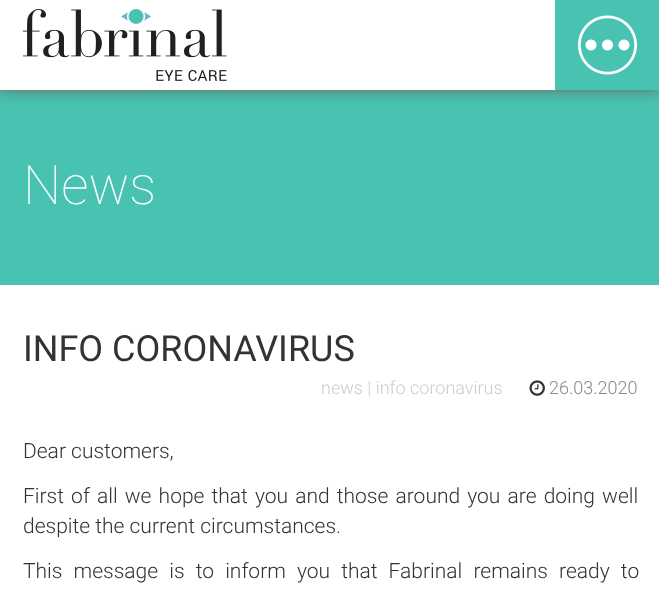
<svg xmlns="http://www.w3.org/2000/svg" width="659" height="596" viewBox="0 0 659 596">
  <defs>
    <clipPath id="clip1"><rect x="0" y="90" width="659" height="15"/></clipPath>
  </defs>
  <rect width="100%" height="100%" fill="rgb(255,255,255)"/>
  <rect x="0" y="90" width="659" height="195" fill="rgb(72,195,177)"/>
  <g clip-path="url(#clip1)">
    <rect x="0" y="0" width="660" height="90" fill="rgb(102,102,102)" filter="blur(7.5px)"/>
  </g>
  <image x="23" y="9" width="204" height="72" href="pic1.png"/>
  <rect x="555" y="0" width="104" height="90" fill="rgb(72,195,177)"/>
  <image x="578" y="15" width="59" height="60" href="pic2.png"/>
  <text x="23" y="204" font-family="Roboto" font-size="54" font-weight="100" fill="rgb(255,255,255)">News</text>
  <text x="23" y="361" font-family="Roboto" font-size="36" fill="rgb(51,51,51)">INFO CORONAVIRUS</text>
  <text x="321" y="394" font-family="Roboto" font-size="18" font-weight="300" fill="rgb(204,204,204)">news | info coronavirus</text>
  <image x="529" y="380" width="16" height="16" href="pic3.png"/>
  <text x="549" y="394" font-family="Roboto" font-size="18" font-weight="300" fill="rgb(136,136,136)">26.03.2020</text>
  <g font-family="Roboto" font-size="21" font-weight="300" fill="rgb(51,51,51)">
    <text x="23" y="458">Dear customers,</text>
    <text>
      <tspan x="23" y="503" word-spacing="2">First of all we hope that you and those around you are doing well</tspan>
      <tspan x="23" y="533">despite the current circumstances.</tspan>
    </text>
    <text x="23" y="578" word-spacing="6">This message is to inform you that Fabrinal remains ready to</text>
  </g>
</svg>
